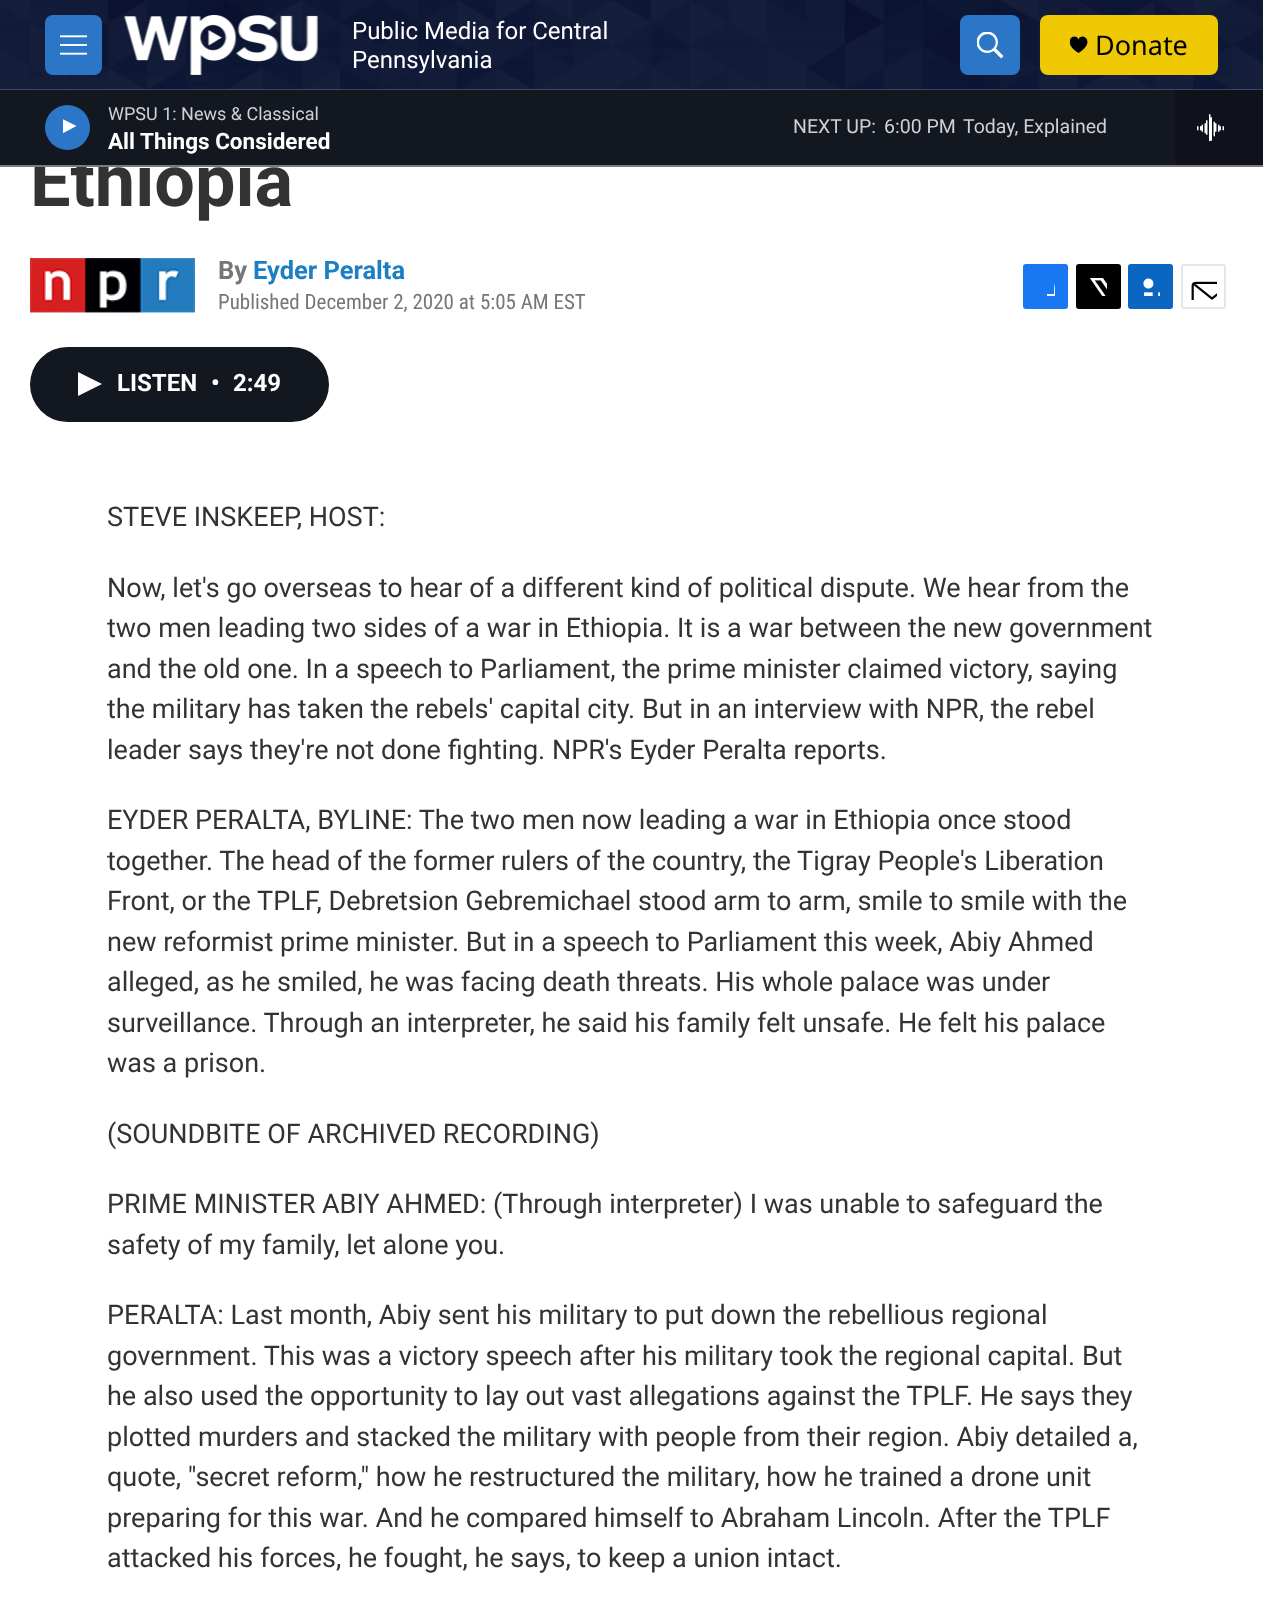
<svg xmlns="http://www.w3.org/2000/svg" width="1263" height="1605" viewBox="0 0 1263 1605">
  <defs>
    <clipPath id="clip1"><rect x="1070" y="36" width="18" height="18"/></clipPath>
    <clipPath id="clip2"><rect x="63" y="117" width="17" height="23"/></clipPath>
    <clipPath id="clip3"><rect x="1037" y="278" width="18" height="18"/></clipPath>
  </defs>
  <rect width="100%" height="100%" fill="rgb(255,255,255)"/>
  <text x="30" y="206" font-family="Roboto" font-size="72" font-weight="bold" fill="rgb(51,51,51)">Ethiopia</text>
  <rect x="0" y="165" width="1263" height="2" fill="rgb(123,123,123)"/>
  <image x="0" y="0" width="1263" height="90" href="pic1.png"/>
  <rect x="45" y="15" width="57" height="60" rx="8" fill="rgb(44,118,199)"/>
  <image x="60" y="35" width="27" height="20" href="pic2.png"/>
  <image x="124" y="15" width="194" height="60" href="pic3.png"/>
  <g font-family="Roboto" font-size="24" fill="rgb(255,255,255)">
    <text>
      <tspan x="352" y="39">Public Media for Central</tspan>
      <tspan x="352" y="68">Pennsylvania</tspan>
    </text>
  </g>
  <rect x="960" y="15" width="60" height="60" rx="8" fill="rgb(44,118,199)"/>
  <image x="977" y="32" width="27" height="27" href="pic4.png"/>
  <rect x="1040" y="15" width="178" height="60" rx="8" fill="rgb(239,201,3)"/>
  <g clip-path="url(#clip1)">
    <path d="M1078.5 39.5C1075.5 31.5 1060 41.5 1078.5 53C1097 41.5 1081.5 31.5 1078.5 39.5Z" fill="rgb(0,0,0)"/>
  </g>
  <text x="1095" y="55" font-family="Noto Sans" font-size="27" fill="rgb(0,0,0)">Donate</text>
  <rect x="0" y="90" width="1175" height="75" fill="rgb(19,23,32)"/>
  <circle cx="67.5" cy="127.5" r="22.5" fill="rgb(44,118,199)"/>
  <g clip-path="url(#clip2)">
    <path d="M62.5 119L76.5 126L62.5 133.5Z" fill="rgb(255,255,255)"/>
  </g>
  <text x="108" y="120" font-family="Roboto" font-size="18" fill="rgb(208,209,210)">WPSU 1: News &amp; Classical</text>
  <text x="108" y="149" font-family="'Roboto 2'" font-size="22.5" font-weight="bold" fill="rgb(255,255,255)">All Things Considered</text>
  <g font-family="Roboto" font-size="19.5" fill="rgb(208,209,210)">
    <text x="793" y="133">NEXT UP:</text>
    <text x="884" y="133">6:00 PM</text>
    <text x="963" y="133">Today, Explained</text>
  </g>
  <rect x="1175" y="90" width="88" height="75" fill="rgb(15,18,26)"/>
  <image x="1197" y="114" width="27" height="27" href="pic5.png"/>
  <image x="30" y="258" width="165" height="56" href="pic6.png"/>
  <text x="218" y="279" font-family="Roboto" font-size="25.5" font-weight="bold" fill="rgb(118,118,118)">By</text>
  <text x="253" y="279" font-family="Roboto" font-size="25.5" font-weight="bold" fill="rgb(26,127,195)">Eyder Peralta</text>
  <text x="218" y="309" font-family="Roboto Condensed" font-size="21" fill="rgb(118,118,118)">Published December 2, 2020 at 5:05 AM EST</text>
  <rect x="1023" y="264" width="45" height="45" rx="3" fill="rgb(23,120,242)"/>
  <g clip-path="url(#clip3)">
    <path d="M1061 309H1054V302H1047V294H1054C1054 282.5 1055 276.5 1068 278V285C1060 285 1061 287.5 1061 294H1068L1067 302H1061Z" fill="rgb(255,255,255)"/>
  </g>
  <rect x="1076" y="264" width="45" height="45" rx="3" fill="rgb(0,0,0)"/>
  <image x="1090" y="278" width="17" height="18" href="pic7.png"/>
  <rect x="1128" y="264" width="45" height="45" rx="3" fill="rgb(10,102,193)"/>
  <image x="1143" y="278" width="17" height="18" href="pic8.png"/>
  <rect x="1182" y="265" width="43" height="43" rx="2" fill="none" stroke="rgb(230,230,230)" stroke-width="2"/>
  <image x="1191" y="281" width="26" height="19" href="pic9.png"/>
  <rect x="30" y="347" width="299" height="75" rx="37.5" fill="rgb(19,23,32)"/>
  <path d="M78 372L102 384L78 396Z" fill="rgb(255,255,255)"/>
  <g font-family="'Roboto 2'" font-size="24" font-weight="bold" fill="rgb(255,255,255)">
    <text x="117" y="391">LISTEN</text>
    <text x="211" y="391">•</text>
    <text x="233" y="391">2:49</text>
  </g>
  <g font-family="Roboto" font-size="27" fill="rgb(51,51,51)">
    <text x="107" y="526">STEVE INSKEEP, HOST:</text>
    <text>
      <tspan x="107" y="597">Now, let's go overseas to hear of a different kind of political dispute. We hear from the</tspan>
      <tspan x="107" y="637">two men leading two sides of a war in Ethiopia. It is a war between the new government</tspan>
      <tspan x="107" y="678">and the old one. In a speech to Parliament, the prime minister claimed victory, saying</tspan>
      <tspan x="107" y="718">the military has taken the rebels' capital city. But in an interview with NPR, the rebel</tspan>
      <tspan x="107" y="759">leader says they're not done fighting. NPR's Eyder Peralta reports.</tspan>
    </text>
    <text>
      <tspan x="107" y="829">EYDER PERALTA, BYLINE: The two men now leading a war in Ethiopia once stood</tspan>
      <tspan x="107" y="870">together. The head of the former rulers of the country, the Tigray People's Liberation</tspan>
      <tspan x="107" y="910">Front, or the TPLF, Debretsion Gebremichael stood arm to arm, smile to smile with the</tspan>
      <tspan x="107" y="951">new reformist prime minister. But in a speech to Parliament this week, Abiy Ahmed</tspan>
      <tspan x="107" y="991">alleged, as he smiled, he was facing death threats. His whole palace was under</tspan>
      <tspan x="107" y="1032">surveillance. Through an interpreter, he said his family felt unsafe. He felt his palace</tspan>
      <tspan x="107" y="1072">was a prison.</tspan>
    </text>
    <text x="107" y="1143">(SOUNDBITE OF ARCHIVED RECORDING)</text>
    <text>
      <tspan x="107" y="1213">PRIME MINISTER ABIY AHMED: (Through interpreter) I was unable to safeguard the</tspan>
      <tspan x="107" y="1254">safety of my family, let alone you.</tspan>
    </text>
    <text>
      <tspan x="107" y="1324">PERALTA: Last month, Abiy sent his military to put down the rebellious regional</tspan>
      <tspan x="107" y="1365">government. This was a victory speech after his military took the regional capital. But</tspan>
      <tspan x="107" y="1405">he also used the opportunity to lay out vast allegations against the TPLF. He says they</tspan>
      <tspan x="107" y="1446">plotted murders and stacked the military with people from their region. Abiy detailed a,</tspan>
      <tspan x="107" y="1486">quote, "secret reform," how he restructured the military, how he trained a drone unit</tspan>
      <tspan x="107" y="1527">preparing for this war. And he compared himself to Abraham Lincoln. After the TPLF</tspan>
      <tspan x="107" y="1567">attacked his forces, he fought, he says, to keep a union intact.</tspan>
    </text>
  </g>
</svg>
